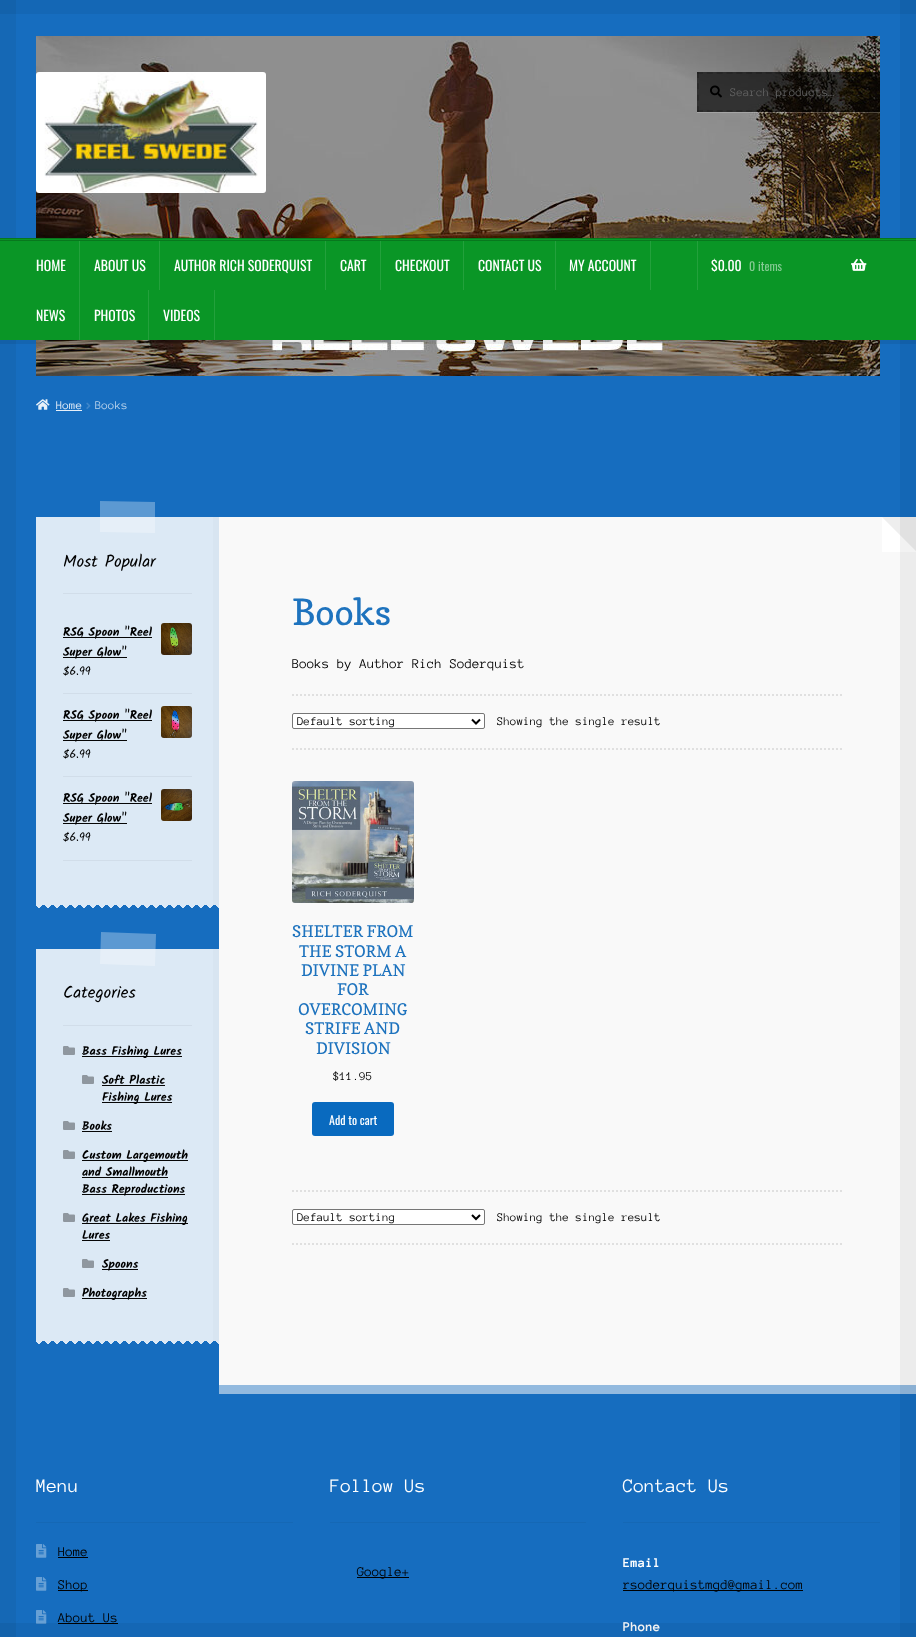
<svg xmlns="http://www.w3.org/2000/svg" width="916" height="1637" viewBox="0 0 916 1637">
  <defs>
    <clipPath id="clip1"><path d="M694 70H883V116H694ZM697 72H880V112H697Z" clip-rule="evenodd"/></clipPath>
  </defs>
  <rect width="100%" height="100%" fill="rgb(22,109,191)"/>
  <rect x="0" y="0" width="16" height="1637" fill="rgb(21,104,181)"/>
  <rect x="219" y="517" width="697" height="868" fill="rgb(249,249,249)"/>
  <path d="M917 552H882V517Z" fill="rgb(255,255,255)"/>
  <path d="M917 517V552L882 517Z" fill="rgb(238,238,238)"/>
  <rect x="219" y="1385" width="697" height="9" fill="rgb(147,186,223)"/>
  <rect x="900" y="0" width="16" height="1637" fill="rgba(0,0,0,0.05)"/>
  <rect x="0" y="0" width="916" height="14" fill="rgba(0,0,0,0.05)"/>
  <image x="36" y="36" width="844" height="340" href="pic1.png"/>
  <image x="36" y="72" width="230" height="121" href="pic2.png"/>
  <g clip-path="url(#clip1)">
    <rect x="697" y="73" width="183" height="40" fill="rgba(255,255,255,0.2)" filter="blur(0.5px)"/>
  </g>
  <rect x="697" y="72" width="183" height="40" fill="rgba(0,0,0,0.65)"/>
  <image x="710" y="85" width="12" height="13" href="pic3.png"/>
  <path d="M697 73H880" fill="none" stroke="rgba(0,0,0,0.15)" stroke-width="2" stroke-dasharray="6 3.83"/>
  <path d="M879 72V112" fill="none" stroke="rgba(0,0,0,0.15)" stroke-width="2" stroke-dasharray="6 5.33"/>
  <path d="M697 111H880" fill="none" stroke="rgba(0,0,0,0.15)" stroke-width="2" stroke-dasharray="6 3.83"/>
  <path d="M698 72V112" fill="none" stroke="rgba(0,0,0,0.15)" stroke-width="2" stroke-dasharray="6 5.33"/>
  <text x="730" y="96" font-family="Anonymous Pro" font-size="12" fill="rgb(97,97,97)">Search products…</text>
  <rect x="0" y="340" width="916" height="4" fill="rgba(0,0,0,0.07)"/>
  <rect x="0" y="239" width="916" height="101" fill="rgb(10,150,38)"/>
  <rect x="0" y="238" width="916" height="1" fill="rgb(8,120,30)"/>
  <rect x="0" y="240" width="916" height="1" fill="rgb(8,120,30)"/>
  <rect x="79" y="241" width="1" height="99" fill="rgb(35,161,60)"/>
  <text x="36" y="271" font-family="Oswald" font-size="13.75" fill="rgb(255,255,255)">HOME</text>
  <rect x="159" y="241" width="1" height="49" fill="rgb(35,161,60)"/>
  <text x="94" y="271" font-family="Oswald" font-size="13.75" fill="rgb(255,255,255)">ABOUT US</text>
  <rect x="325" y="241" width="1" height="49" fill="rgb(35,161,60)"/>
  <text x="174" y="271" font-family="Oswald" font-size="13.75" fill="rgb(255,255,255)">AUTHOR RICH SODERQUIST</text>
  <rect x="380" y="241" width="1" height="49" fill="rgb(35,161,60)"/>
  <text x="340" y="271" font-family="Oswald" font-size="13.75" fill="rgb(255,255,255)">CART</text>
  <rect x="463" y="241" width="1" height="49" fill="rgb(35,161,60)"/>
  <text x="395" y="271" font-family="Oswald" font-size="13.75" fill="rgb(255,255,255)">CHECKOUT</text>
  <rect x="555" y="241" width="1" height="49" fill="rgb(35,161,60)"/>
  <text x="478" y="271" font-family="Oswald" font-size="13.75" fill="rgb(255,255,255)">CONTACT US</text>
  <rect x="650" y="241" width="1" height="49" fill="rgb(35,161,60)"/>
  <g font-family="Oswald" font-size="13.75" fill="rgb(255,255,255)">
    <text x="569" y="271">MY ACCOUNT</text>
    <text x="36" y="321">NEWS</text>
  </g>
  <rect x="148" y="290" width="1" height="50" fill="rgb(35,161,60)"/>
  <text x="94" y="321" font-family="Oswald" font-size="13.75" fill="rgb(255,255,255)">PHOTOS</text>
  <rect x="214" y="290" width="1" height="50" fill="rgb(35,161,60)"/>
  <text x="163" y="321" font-family="Oswald" font-size="13.75" fill="rgb(255,255,255)">VIDEOS</text>
  <rect x="697" y="241" width="1" height="49" fill="rgb(35,161,60)"/>
  <text x="711" y="271" font-family="Oswald" font-size="13.75" fill="rgb(255,255,255)">$0.00</text>
  <text x="749" y="271" font-family="Oswald" font-size="12" fill="rgb(133,203,147)">0 items</text>
  <image x="851" y="258" width="16" height="13" href="pic4.png"/>
  <image x="36" y="399" width="14" height="11" href="pic5.png"/>
  <text x="56" y="409" font-family="Anonymous Pro" font-size="12" fill="rgb(232,240,249)">Home</text>
  <rect x="56" y="410" width="26" height="1" fill="rgb(232,240,249)"/>
  <image x="86" y="402" width="5" height="7" href="pic6.png"/>
  <text x="95" y="409" font-family="Anonymous Pro" font-size="12" fill="rgb(185,211,236)">Books</text>
  <rect x="36" y="517" width="177" height="388" fill="rgb(220,233,245)"/>
  <rect x="213" y="517" width="6" height="388" fill="rgb(216,229,241)"/>
  <path d="M100 501L155 502V533L100 532Z" fill="rgba(255,255,255,0.3)"/>
  <rect x="63" y="593" width="129" height="1" fill="rgb(209,221,233)"/>
  <text x="63" y="567" font-family="Kalam" font-size="17" fill="rgb(0,0,0)">Most Popular</text>
  <rect x="63" y="693" width="129" height="1" fill="rgb(209,221,233)"/>
  <rect x="63" y="637" width="89" height="1" fill="rgb(5,5,5)"/>
  <text x="63" y="636" font-family="Kalam" font-size="12" font-weight="bold" fill="rgb(0,0,0)">RSG Spoon "Reel</text>
  <image x="161" y="623" width="31" height="32" href="pic7.png"/>
  <rect x="63" y="657" width="64" height="1" fill="rgb(5,5,5)"/>
  <text x="63" y="656" font-family="Kalam" font-size="12" font-weight="bold" fill="rgb(0,0,0)">Super Glow"</text>
  <text x="63" y="675" font-family="Kalam" font-size="12" fill="rgb(0,0,0)">$6.99</text>
  <rect x="63" y="776" width="129" height="1" fill="rgb(209,221,233)"/>
  <rect x="63" y="720" width="89" height="1" fill="rgb(5,5,5)"/>
  <text x="63" y="719" font-family="Kalam" font-size="12" font-weight="bold" fill="rgb(0,0,0)">RSG Spoon "Reel</text>
  <image x="161" y="706" width="31" height="32" href="pic8.png"/>
  <rect x="63" y="740" width="64" height="1" fill="rgb(5,5,5)"/>
  <text x="63" y="739" font-family="Kalam" font-size="12" font-weight="bold" fill="rgb(0,0,0)">Super Glow"</text>
  <text x="63" y="758" font-family="Kalam" font-size="12" fill="rgb(0,0,0)">$6.99</text>
  <rect x="63" y="860" width="129" height="1" fill="rgb(209,221,233)"/>
  <rect x="63" y="803" width="89" height="1" fill="rgb(5,5,5)"/>
  <text x="63" y="802" font-family="Kalam" font-size="12" font-weight="bold" fill="rgb(0,0,0)">RSG Spoon "Reel</text>
  <image x="161" y="789" width="31" height="32" href="pic9.png"/>
  <rect x="63" y="823" width="64" height="1" fill="rgb(5,5,5)"/>
  <text x="63" y="822" font-family="Kalam" font-size="12" font-weight="bold" fill="rgb(0,0,0)">Super Glow"</text>
  <text x="63" y="841" font-family="Kalam" font-size="12" fill="rgb(0,0,0)">$6.99</text>
  <image x="36" y="905" width="183" height="3" href="pic10.png"/>
  <image x="39" y="905" width="174" height="3" href="pic11.png"/>
  <rect x="36" y="949" width="177" height="392" fill="rgb(220,233,245)"/>
  <rect x="213" y="949" width="6" height="392" fill="rgb(216,229,241)"/>
  <path d="M101 932L156 934L155 966L100 964Z" fill="rgba(255,255,255,0.3)"/>
  <rect x="63" y="1025" width="129" height="1" fill="rgb(209,221,233)"/>
  <text x="63" y="998" font-family="Kalam" font-size="17" fill="rgb(0,0,0)">Categories</text>
  <image x="63" y="1046" width="12" height="9" href="pic12.png"/>
  <rect x="82" y="1056" width="100" height="1" fill="rgb(5,5,5)"/>
  <text x="82" y="1055" font-family="Kalam" font-size="12" font-weight="bold" fill="rgb(0,0,0)">Bass Fishing Lures</text>
  <image x="82" y="1075" width="12" height="9" href="pic12.png"/>
  <text x="102" y="1084" font-family="Kalam" font-size="12" font-weight="bold" fill="rgb(0,0,0)">Soft Plastic</text>
  <rect x="102" y="1085" width="63" height="1" fill="rgb(5,5,5)"/>
  <rect x="102" y="1102" width="70" height="1" fill="rgb(5,5,5)"/>
  <text x="102" y="1101" font-family="Kalam" font-size="12" font-weight="bold" fill="rgb(0,0,0)">Fishing Lures</text>
  <image x="63" y="1121" width="12" height="9" href="pic12.png"/>
  <text x="82" y="1130" font-family="Kalam" font-size="12" font-weight="bold" fill="rgb(0,0,0)">Books</text>
  <rect x="82" y="1131" width="30" height="1" fill="rgb(5,5,5)"/>
  <image x="63" y="1150" width="12" height="9" href="pic12.png"/>
  <rect x="82" y="1160" width="106" height="1" fill="rgb(5,5,5)"/>
  <g font-family="Kalam" font-size="12" font-weight="bold" fill="rgb(0,0,0)">
    <text>
      <tspan x="82" y="1159">Custom Largemouth</tspan>
      <tspan x="82" y="1176">and Smallmouth</tspan>
    </text>
  </g>
  <rect x="82" y="1177" width="86" height="1" fill="rgb(5,5,5)"/>
  <rect x="82" y="1194" width="103" height="1" fill="rgb(5,5,5)"/>
  <text x="82" y="1193" font-family="Kalam" font-size="12" font-weight="bold" fill="rgb(0,0,0)">Bass Reproductions</text>
  <image x="63" y="1213" width="12" height="9" href="pic12.png"/>
  <rect x="82" y="1223" width="106" height="1" fill="rgb(5,5,5)"/>
  <g font-family="Kalam" font-size="12" font-weight="bold" fill="rgb(0,0,0)">
    <text>
      <tspan x="82" y="1222">Great Lakes Fishing</tspan>
      <tspan x="82" y="1239">Lures</tspan>
    </text>
  </g>
  <rect x="82" y="1240" width="28" height="1" fill="rgb(5,5,5)"/>
  <image x="82" y="1259" width="12" height="9" href="pic12.png"/>
  <rect x="102" y="1269" width="36" height="1" fill="rgb(5,5,5)"/>
  <text x="102" y="1268" font-family="Kalam" font-size="12" font-weight="bold" fill="rgb(0,0,0)">Spoons</text>
  <image x="63" y="1288" width="12" height="9" href="pic12.png"/>
  <rect x="82" y="1298" width="65" height="1" fill="rgb(5,5,5)"/>
  <text x="82" y="1297" font-family="Kalam" font-size="12" font-weight="bold" fill="rgb(0,0,0)">Photographs</text>
  <image x="36" y="1341" width="183" height="3" href="pic10.png"/>
  <image x="39" y="1341" width="174" height="3" href="pic11.png"/>
  <text x="292" y="625" font-family="Copse" font-size="36" fill="rgb(30,115,190)">Books</text>
  <text x="292" y="668" font-family="Anonymous Pro" font-size="13.75" fill="rgb(0,0,0)">Books by Author Rich Soderquist</text>
  <path d="M292 695H844" fill="none" stroke="rgb(224,224,224)" stroke-width="2" stroke-dasharray="2 2"/>
  <path d="M292 749H844" fill="none" stroke="rgb(224,224,224)" stroke-width="2" stroke-dasharray="2 2"/>
  <rect x="292.5" y="713.5" width="192" height="15" rx="1.5" fill="rgb(255,255,255)" stroke="rgb(118,118,118)"/>
  <path d="M472 719.5L476 723.5L480 719.5" fill="none" stroke="rgb(0,0,0)" stroke-width="2"/>
  <g font-family="Anonymous Pro" font-size="12" fill="rgb(0,0,0)">
    <text x="297" y="725">Default sorting</text>
    <text x="497" y="725">Showing the single result</text>
  </g>
  <image x="292" y="781" width="122" height="122" href="pic13.png"/>
  <g font-family="Copse" font-size="16" fill="rgb(30,115,190)">
    <text x="292" y="937">SHELTER FROM</text>
    <text x="299" y="957">THE STORM A</text>
    <text x="301" y="976">DIVINE PLAN</text>
    <text x="337" y="995">FOR</text>
    <text x="298" y="1015">OVERCOMING</text>
    <text x="305" y="1034">STRIFE AND</text>
    <text x="316" y="1054">DIVISION</text>
  </g>
  <text x="333" y="1080" font-family="Anonymous Pro" font-size="12" fill="rgb(0,0,0)">$11.95</text>
  <rect x="312" y="1102" width="82" height="34" rx="3" fill="rgb(9,106,191)"/>
  <text x="329" y="1125" font-family="Oswald" font-size="12" fill="rgb(255,255,255)">Add to cart</text>
  <path d="M292 1191H844" fill="none" stroke="rgb(224,224,224)" stroke-width="2" stroke-dasharray="2 2"/>
  <path d="M292 1244H844" fill="none" stroke="rgb(224,224,224)" stroke-width="2" stroke-dasharray="2 2"/>
  <rect x="292.5" y="1209.5" width="192" height="15" rx="1.5" fill="rgb(255,255,255)" stroke="rgb(118,118,118)"/>
  <path d="M472 1215L476 1219L480 1215" fill="none" stroke="rgb(0,0,0)" stroke-width="2"/>
  <g font-family="Anonymous Pro" font-size="12" fill="rgb(0,0,0)">
    <text x="297" y="1221">Default sorting</text>
    <text x="497" y="1221">Showing the single result</text>
  </g>
  <rect x="36" y="1522" width="257" height="1" fill="rgb(21,104,181)"/>
  <text x="36" y="1492" font-family="Anonymous Pro" font-size="19.5" fill="rgb(255,255,255)">Menu</text>
  <image x="36" y="1544" width="11" height="14" href="pic14.png"/>
  <text x="58" y="1556" font-family="Anonymous Pro" font-size="13.75" fill="rgb(0,0,0)">Home</text>
  <rect x="58" y="1557" width="30" height="1" fill="rgb(0,0,0)"/>
  <image x="36" y="1577" width="11" height="14" href="pic14.png"/>
  <rect x="58" y="1590" width="30" height="1" fill="rgb(0,0,0)"/>
  <text x="58" y="1589" font-family="Anonymous Pro" font-size="13.75" fill="rgb(0,0,0)">Shop</text>
  <image x="36" y="1610" width="11" height="14" href="pic14.png"/>
  <text x="58" y="1622" font-family="Anonymous Pro" font-size="13.75" fill="rgb(0,0,0)">About Us</text>
  <rect x="58" y="1623" width="60" height="1" fill="rgb(0,0,0)"/>
  <rect x="330" y="1522" width="256" height="1" fill="rgb(21,104,181)"/>
  <text x="330" y="1492" font-family="Anonymous Pro" font-size="19.5" fill="rgb(255,255,255)">Follow Us</text>
  <rect x="357" y="1577" width="52" height="1" fill="rgb(0,0,0)"/>
  <text x="357" y="1576" font-family="Anonymous Pro" font-size="13.75" fill="rgb(0,0,0)">Google+</text>
  <rect x="623" y="1522" width="257" height="1" fill="rgb(21,104,181)"/>
  <text x="623" y="1492" font-family="Anonymous Pro" font-size="19.5" fill="rgb(255,255,255)">Contact Us</text>
  <text x="623" y="1567" font-family="Anonymous Pro" font-size="13.75" font-weight="bold" fill="rgb(255,255,255)">Email</text>
  <rect x="623" y="1590" width="180" height="1" fill="rgb(0,0,0)"/>
  <text x="623" y="1589" font-family="Anonymous Pro" font-size="13.75" fill="rgb(0,0,0)">rsoderquistmgd@gmail.com</text>
  <text x="623" y="1631" font-family="Anonymous Pro" font-size="13.75" font-weight="bold" fill="rgb(255,255,255)">Phone</text>
  <rect x="0" y="1623" width="916" height="14" fill="rgba(0,0,0,0.05)"/>
</svg>
